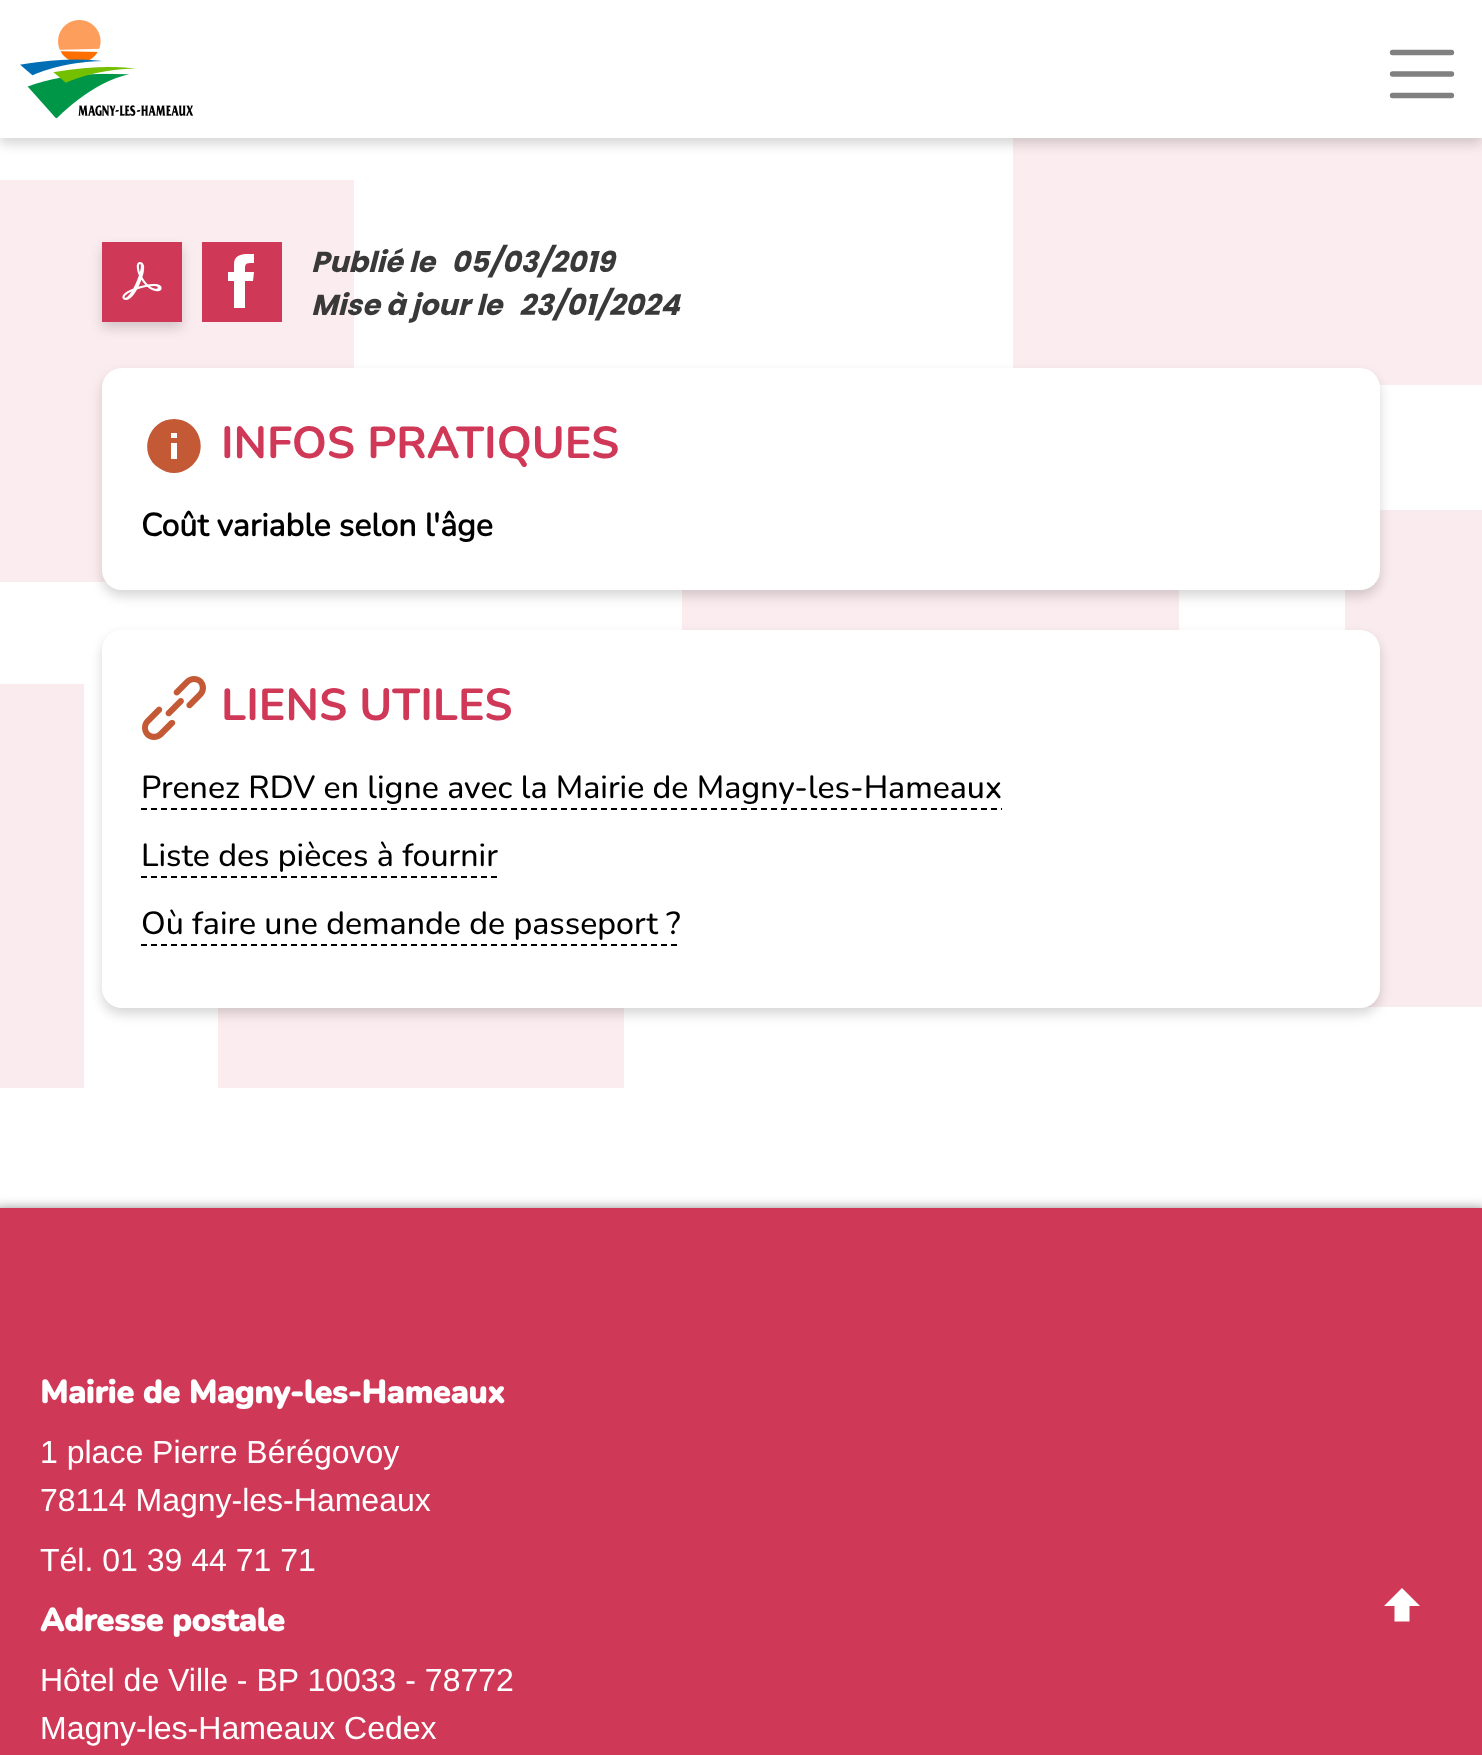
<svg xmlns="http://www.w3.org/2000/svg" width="1482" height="1755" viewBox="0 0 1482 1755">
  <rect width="100%" height="100%" fill="rgb(255,255,255)"/>
  <rect x="1013" y="138" width="469" height="247" fill="rgb(251,236,239)"/>
  <rect x="0" y="6" width="1482" height="138" fill="rgba(0,0,0,0.16)" filter="blur(6px)"/>
  <rect x="0" y="0" width="1482" height="138" fill="rgb(255,255,255)"/>
  <image x="20" y="20" width="174" height="98" href="pic1.png"/>
  <path d="M1392.5 52.5H1451.5M1392.5 74H1451.5M1392.5 95.5H1451.5" fill="none" stroke="rgb(128,128,128)" stroke-width="5.3" stroke-linecap="round"/>
  <rect x="0" y="684" width="84" height="404" fill="rgb(250,235,238)"/>
  <rect x="218" y="1008" width="406" height="80" fill="rgb(251,236,239)"/>
  <rect x="0" y="180" width="354" height="402" fill="rgb(251,236,239)"/>
  <rect x="682" y="590" width="497" height="40" fill="rgb(251,236,239)"/>
  <rect x="1345" y="510" width="137" height="497" fill="rgb(250,235,238)"/>
  <rect x="102" y="248" width="80" height="80" fill="rgba(0,0,0,0.16)" filter="blur(6px)"/>
  <rect x="102" y="242" width="80" height="80" fill="rgb(208,56,87)"/>
  <image x="122" y="262" width="40" height="38" href="pic2.png"/>
  <rect x="202" y="242" width="80" height="80" fill="rgb(208,56,87)"/>
  <path d="M234 264V272H228V281H234V308H245V281H253L254 272H245C245 263 245 263 254 263V254C245 254 234 253 234 264Z" fill="rgb(255,255,255)"/>
  <g font-family="Poppins" font-size="28.75" font-weight="bold" font-style="italic" fill="rgb(57,57,57)">
    <text x="311" y="272">Publié le</text>
    <text x="451" y="272">05/03/2019</text>
    <text x="311" y="315">Mise à jour le</text>
    <text x="519" y="315">23/01/2024</text>
  </g>
  <rect x="102" y="374" width="1278" height="222" rx="20" fill="rgba(0,0,0,0.16)" filter="blur(6px)"/>
  <rect x="102" y="368" width="1278" height="222" rx="20" fill="rgb(255,255,255)"/>
  <path d="M174 419C148 419 137 454 159 468C163 471 169 473 174 473C179 473 185 471 189 468C211 453 200 419 174 419ZM177 459H171V443H177ZM177 438H171V433H177Z" fill="rgb(195,90,53)"/>
  <text x="221" y="458" font-family="Nunito" font-size="44.75" font-weight="200" fill="rgb(208,56,87)">INFOS PRATIQUES</text>
  <text x="141" y="536" font-family="Nunito" font-size="32" font-weight="bold" fill="rgb(0,0,0)">Coût variable selon l'âge</text>
  <rect x="102" y="636" width="1278" height="378" rx="20" fill="rgba(0,0,0,0.16)" filter="blur(6px)"/>
  <rect x="102" y="630" width="1278" height="378" rx="20" fill="rgb(255,255,255)"/>
  <image x="142" y="676" width="64" height="64" href="pic3.png"/>
  <text x="221" y="720" font-family="Nunito" font-size="44.75" font-weight="200" fill="rgb(208,56,87)">LIENS UTILES</text>
  <text x="141" y="798" font-family="'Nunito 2'" font-size="32" font-weight="200" fill="rgb(0,0,0)">Prenez RDV en ligne avec la Mairie de Magny-les-Hameaux</text>
  <path d="M141 809H1002" fill="none" stroke="rgb(0,0,0)" stroke-width="2" stroke-dasharray="6 4"/>
  <text x="141" y="866" font-family="'Nunito 2'" font-size="32" font-weight="200" fill="rgb(0,0,0)">Liste des pièces à fournir</text>
  <path d="M141 877H498" fill="none" stroke="rgb(0,0,0)" stroke-width="2" stroke-dasharray="6 4"/>
  <text x="141" y="934" font-family="'Nunito 2'" font-size="32" font-weight="200" fill="rgb(0,0,0)">Où faire une demande de passeport ?</text>
  <path d="M141 945H680.5" fill="none" stroke="rgb(0,0,0)" stroke-width="2" stroke-dasharray="6 4"/>
  <rect x="-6" y="1214" width="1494" height="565" fill="rgb(0,0,0)" filter="blur(8px)"/>
  <rect x="0" y="1208" width="1482" height="547" fill="rgb(208,56,87)"/>
  <text x="40" y="1403" font-family="'Nunito 2'" font-size="32" font-weight="bold" fill="rgb(255,255,255)">Mairie de Magny-les-Hameaux</text>
  <g font-family="Liberation Sans" font-size="32" fill="rgb(255,255,255)">
    <text>
      <tspan x="40" y="1463">1 place Pierre Bérégovoy</tspan>
      <tspan x="40" y="1511">78114 Magny-les-Hameaux</tspan>
      <tspan x="40" y="1571">Tél. 01 39 44 71 71</tspan>
    </text>
  </g>
  <text x="40" y="1631" font-family="'Nunito 2'" font-size="32" font-weight="bold" fill="rgb(255,255,255)">Adresse postale</text>
  <g font-family="Liberation Sans" font-size="32" fill="rgb(255,255,255)">
    <text>
      <tspan x="40" y="1691">Hôtel de Ville - BP 10033 - 78772</tspan>
      <tspan x="40" y="1739">Magny-les-Hameaux Cedex</tspan>
    </text>
  </g>
  <path d="M1384 1606H1394.5V1621.5H1409.5V1606H1420L1402 1588Z" fill="rgb(255,255,255)"/>
</svg>
